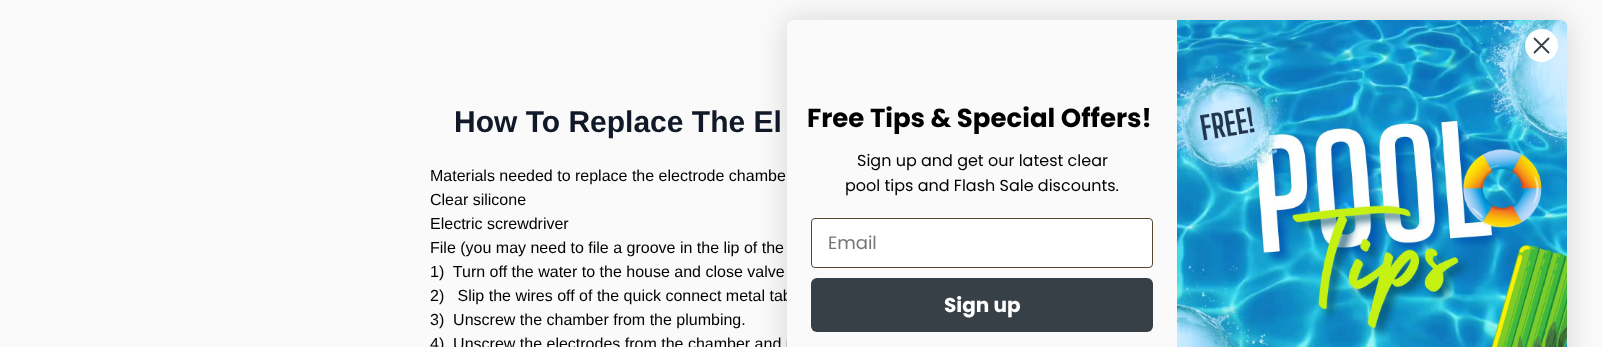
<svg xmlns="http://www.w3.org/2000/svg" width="1602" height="347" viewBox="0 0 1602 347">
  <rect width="100%" height="100%" fill="rgb(250,250,250)"/>
  <text x="454" y="132" font-family="Liberation Sans" font-size="30" font-weight="bold" fill="rgb(17,24,39)">How To Replace The El</text>
  <g font-family="Liberation Sans" font-size="16" fill="rgb(0,0,0)">
    <text xml:space="preserve"><tspan x="430" y="181">Materials needed to replace the electrode chambe</tspan><tspan x="430" y="205">Clear silicone</tspan><tspan x="430" y="229">Electric screwdriver</tspan><tspan x="430" y="253">File (you may need to file a groove in the lip of the</tspan><tspan x="430" y="277">1)  Turn off the water to the house and close valve</tspan><tspan x="430" y="301">2)   Slip the wires off of the quick connect metal tab</tspan><tspan x="430" y="325">3)  Unscrew the chamber from the plumbing.</tspan><tspan x="430" y="349">4)  Unscrew the electrodes from the chamber and m</tspan></text>
  </g>
  <rect x="787" y="20" width="780" height="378" rx="6" fill="rgba(0,0,0,0.15)" filter="blur(15px)"/>
  <rect x="787" y="20" width="780" height="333" rx="6" fill="rgb(250,250,250)"/>
  <image x="1177" y="20" width="390" height="327" href="pic1.png"/>
  <circle cx="1541.5" cy="45.5" r="16.5" fill="rgb(255,255,255)"/>
  <path d="M1534.5 38.5L1548.5 52.5M1534.5 52.5L1548.5 38.5Z" fill="none" stroke="rgb(55,63,71)" stroke-width="1.8" stroke-linecap="round" stroke-linejoin="round"/>
  <text x="807" y="127" font-family="Poppins" font-size="26" font-weight="bold" fill="rgb(0,0,0)">Free Tips &amp; Special Offers!</text>
  <g font-family="Poppins" font-size="16" fill="rgb(0,0,0)">
    <text x="857" y="166">Sign up and get our latest clear</text>
    <text x="845" y="191">pool tips and Flash Sale discounts.</text>
  </g>
  <rect x="811.5" y="218.5" width="341" height="49" rx="3.5" fill="rgb(255,255,255)" stroke="rgb(84,70,47)"/>
  <text x="828" y="249" font-family="Poppins" font-size="18" fill="rgb(118,118,118)">Email</text>
  <rect x="811" y="278" width="342" height="54" rx="6" fill="rgb(55,63,71)"/>
  <text x="944" y="312" font-family="Poppins" font-size="20" font-weight="bold" fill="rgb(255,255,255)">Sign up</text>
</svg>
